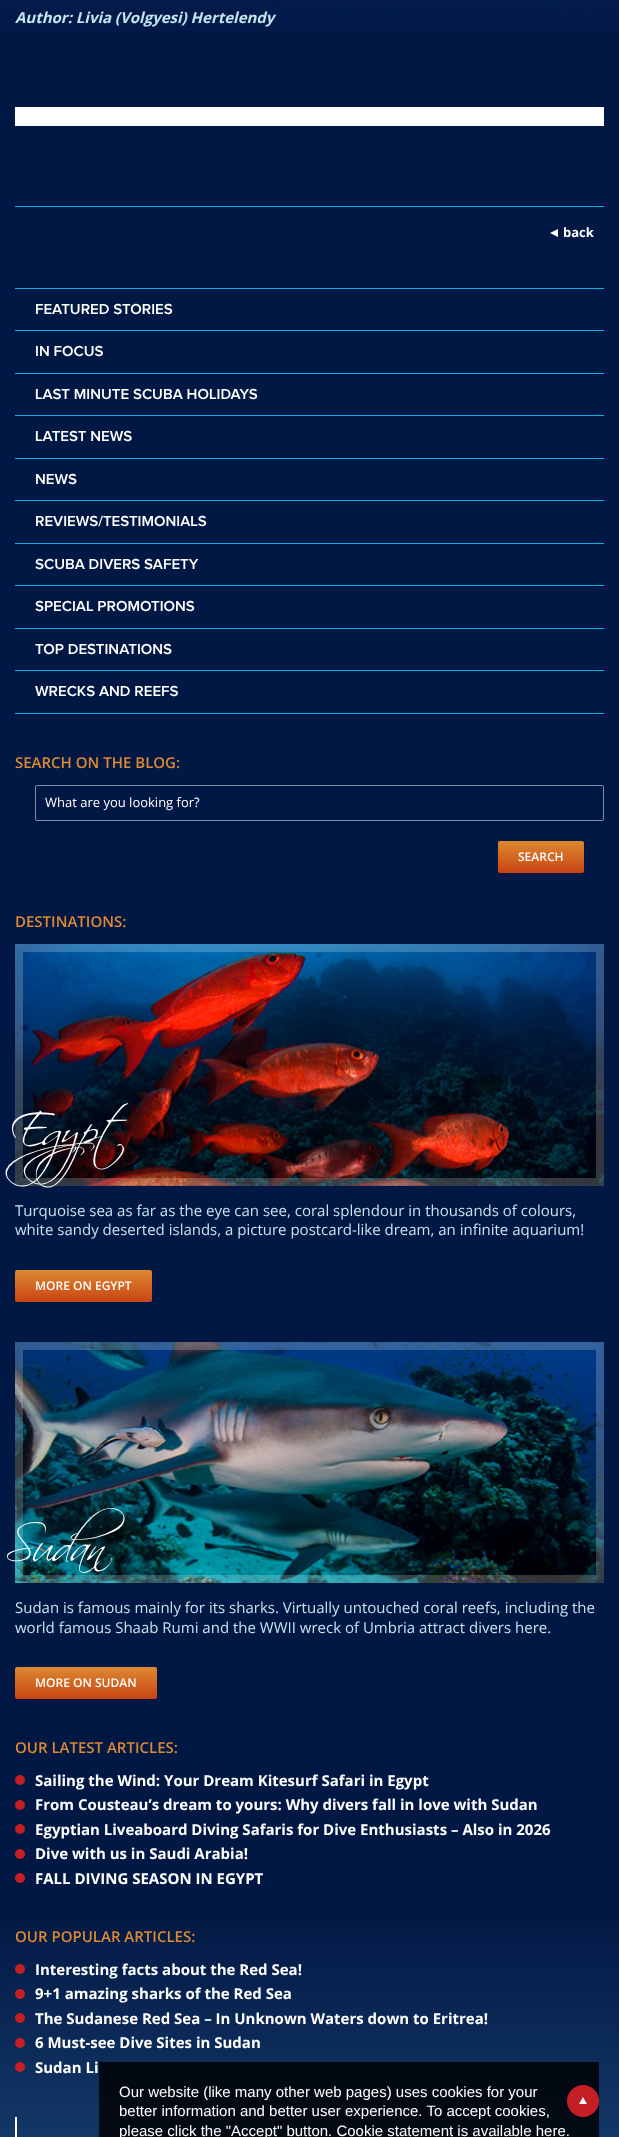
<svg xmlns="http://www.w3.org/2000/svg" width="619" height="2137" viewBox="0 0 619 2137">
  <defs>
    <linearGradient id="g1" gradientUnits="userSpaceOnUse" x1="541" y1="873" x2="541" y2="841"><stop offset="0" stop-color="rgb(201,68,20)"/><stop offset="1" stop-color="rgb(221,137,49)"/></linearGradient>
    <linearGradient id="g2" gradientUnits="userSpaceOnUse" x1="84" y1="1302" x2="84" y2="1270"><stop offset="0" stop-color="rgb(201,68,20)"/><stop offset="1" stop-color="rgb(221,137,49)"/></linearGradient>
    <linearGradient id="g3" gradientUnits="userSpaceOnUse" x1="86" y1="1699" x2="86" y2="1667"><stop offset="0" stop-color="rgb(201,68,20)"/><stop offset="1" stop-color="rgb(221,137,49)"/></linearGradient>
    <linearGradient id="g4" gradientUnits="userSpaceOnUse" x1="310" y1="1909" x2="310" y2="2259"><stop offset="0" stop-color="rgb(2,24,68)"/><stop offset="1" stop-color="rgb(28,72,121)"/></linearGradient>
  </defs>
  <rect width="100%" height="100%" fill="rgb(2,24,68)"/>
  <image x="0" y="0" width="619" height="31" href="pic1.png"/>
  <text x="15" y="23" font-family="Open Sans" font-size="15" font-weight="bold" font-style="italic" fill="rgb(196,228,238)">Author: Livia (Volgyesi) Hertelendy</text>
  <rect x="15" y="107" width="589" height="19" fill="rgb(255,255,255)"/>
  <rect x="15" y="206" width="589" height="1" fill="rgb(5,177,231)"/>
  <path d="M558 229V237L550 233Z" fill="rgb(255,255,255)"/>
  <text x="563" y="237" font-family="Open Sans" font-size="13" font-weight="bold" fill="rgb(255,255,255)">back</text>
  <rect x="15" y="288" width="589" height="1" fill="rgb(5,177,231)"/>
  <rect x="15" y="330" width="589" height="1" fill="rgb(5,177,231)"/>
  <text x="35" y="314" font-family="Proxima Nova" font-size="15" font-weight="600" fill="rgb(255,255,255)">FEATURED STORIES</text>
  <rect x="15" y="373" width="589" height="1" fill="rgb(5,177,231)"/>
  <text x="35" y="356" font-family="Proxima Nova" font-size="15" font-weight="600" fill="rgb(255,255,255)">IN FOCUS</text>
  <rect x="15" y="415" width="589" height="1" fill="rgb(5,177,231)"/>
  <text x="35" y="399" font-family="Proxima Nova" font-size="15" font-weight="600" fill="rgb(255,255,255)">LAST MINUTE SCUBA HOLIDAYS</text>
  <rect x="15" y="458" width="589" height="1" fill="rgb(5,177,231)"/>
  <text x="35" y="441" font-family="Proxima Nova" font-size="15" font-weight="600" fill="rgb(255,255,255)">LATEST NEWS</text>
  <rect x="15" y="500" width="589" height="1" fill="rgb(5,177,231)"/>
  <text x="35" y="484" font-family="Proxima Nova" font-size="15" font-weight="600" fill="rgb(255,255,255)">NEWS</text>
  <rect x="15" y="543" width="589" height="1" fill="rgb(5,177,231)"/>
  <text x="35" y="526" font-family="Proxima Nova" font-size="15" font-weight="600" fill="rgb(255,255,255)">REVIEWS/TESTIMONIALS</text>
  <rect x="15" y="585" width="589" height="1" fill="rgb(5,177,231)"/>
  <text x="35" y="569" font-family="Proxima Nova" font-size="15" font-weight="600" fill="rgb(255,255,255)">SCUBA DIVERS SAFETY</text>
  <rect x="15" y="628" width="589" height="1" fill="rgb(5,177,231)"/>
  <text x="35" y="611" font-family="Proxima Nova" font-size="15" font-weight="600" fill="rgb(255,255,255)">SPECIAL PROMOTIONS</text>
  <rect x="15" y="670" width="589" height="1" fill="rgb(5,177,231)"/>
  <text x="35" y="654" font-family="Proxima Nova" font-size="15" font-weight="600" fill="rgb(255,255,255)">TOP DESTINATIONS</text>
  <rect x="15" y="713" width="589" height="1" fill="rgb(5,177,231)"/>
  <text x="35" y="696" font-family="Proxima Nova" font-size="15" font-weight="600" fill="rgb(255,255,255)">WRECKS AND REEFS</text>
  <text x="15" y="768" font-family="Open Sans" font-size="15" font-weight="600" fill="rgb(221,137,49)">SEARCH ON THE BLOG:</text>
  <rect x="35.5" y="785.5" width="568" height="35" rx="1.5" fill="none" stroke="rgb(129,140,162)"/>
  <text x="45" y="807" font-family="Open Sans" font-size="13" fill="rgb(255,255,255)">What are you looking for?</text>
  <rect x="498" y="841" width="86" height="32" rx="2" fill="url(#g1)"/>
  <text x="518" y="861" font-family="Open Sans" font-size="12" font-weight="600" fill="rgb(255,255,255)">SEARCH</text>
  <text x="15" y="927" font-family="Open Sans" font-size="15" font-weight="600" fill="rgb(221,137,49)">DESTINATIONS:</text>
  <image x="15" y="944" width="589" height="242" href="pic2.png"/>
  <rect x="19" y="948" width="581" height="234" fill="none" stroke="rgba(255,255,255,0.2)" stroke-width="8"/>
  <text x="5" y="1144" font-family="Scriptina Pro" font-size="46" font-weight="300" font-style="italic" fill="rgb(255,255,255)">Egypt</text>
  <g font-family="Open Sans" font-size="15" fill="rgb(196,228,238)">
    <text>
      <tspan x="15" y="1216">Turquoise sea as far as the eye can see, coral splendour in thousands of colours,</tspan>
      <tspan x="15" y="1235">white sandy deserted islands, a picture postcard-like dream, an infinite aquarium!</tspan>
    </text>
  </g>
  <rect x="15" y="1270" width="137" height="32" rx="2" fill="url(#g2)"/>
  <text x="35" y="1290" font-family="Open Sans" font-size="12" font-weight="600" fill="rgb(255,255,255)">MORE ON EGYPT</text>
  <image x="15" y="1342" width="589" height="241" href="pic3.png"/>
  <rect x="19" y="1346" width="581" height="233" fill="none" stroke="rgba(255,255,255,0.2)" stroke-width="8"/>
  <text x="5" y="1561" font-family="Scriptina Pro" font-size="46" font-weight="300" font-style="italic" fill="rgb(255,255,255)">Sudan</text>
  <g font-family="Open Sans" font-size="15" fill="rgb(196,228,238)">
    <text>
      <tspan x="15" y="1613">Sudan is famous mainly for its sharks. Virtually untouched coral reefs, including the</tspan>
      <tspan x="15" y="1633">world famous Shaab Rumi and the WWII wreck of Umbria attract divers here.</tspan>
    </text>
  </g>
  <rect x="15" y="1667" width="142" height="32" rx="2" fill="url(#g3)"/>
  <text x="35" y="1687" font-family="Open Sans" font-size="12" font-weight="600" fill="rgb(255,255,255)">MORE ON SUDAN</text>
  <text x="15" y="1753" font-family="Open Sans" font-size="15" font-weight="600" fill="rgb(221,137,49)">OUR LATEST ARTICLES:</text>
  <circle cx="20" cy="1780" r="5" fill="rgb(196,31,37)"/>
  <text x="35" y="1786" font-family="Open Sans" font-size="15" font-weight="bold" fill="rgb(255,255,255)">Sailing the Wind: Your Dream Kitesurf Safari in Egypt</text>
  <circle cx="20" cy="1805" r="5" fill="rgb(196,31,37)"/>
  <text x="35" y="1810" font-family="Open Sans" font-size="15" font-weight="bold" fill="rgb(255,255,255)">From Cousteau’s dream to yours: Why divers fall in love with Sudan</text>
  <circle cx="20" cy="1829" r="5" fill="rgb(196,31,37)"/>
  <text x="35" y="1835" font-family="Open Sans" font-size="15" font-weight="bold" fill="rgb(255,255,255)">Egyptian Liveaboard Diving Safaris for Dive Enthusiasts – Also in 2026</text>
  <circle cx="20" cy="1854" r="5" fill="rgb(196,31,37)"/>
  <text x="35" y="1859" font-family="Open Sans" font-size="15" font-weight="bold" fill="rgb(255,255,255)">Dive with us in Saudi Arabia!</text>
  <circle cx="20" cy="1878" r="5" fill="rgb(196,31,37)"/>
  <text x="35" y="1884" font-family="Open Sans" font-size="15" font-weight="bold" fill="rgb(255,255,255)">FALL DIVING SEASON IN EGYPT</text>
  <rect x="0" y="1926" width="619" height="211" fill="url(#g4)"/>
  <text x="15" y="1942" font-family="Open Sans" font-size="15" font-weight="600" fill="rgb(221,137,49)">OUR POPULAR ARTICLES:</text>
  <circle cx="20" cy="1969" r="5" fill="rgb(196,31,37)"/>
  <text x="35" y="1975" font-family="Open Sans" font-size="15" font-weight="bold" fill="rgb(255,255,255)">Interesting facts about the Red Sea!</text>
  <circle cx="20" cy="1994" r="5" fill="rgb(196,31,37)"/>
  <text x="35" y="1999" font-family="Open Sans" font-size="15" font-weight="bold" fill="rgb(255,255,255)">9+1 amazing sharks of the Red Sea</text>
  <circle cx="20" cy="2018" r="5" fill="rgb(196,31,37)"/>
  <text x="35" y="2024" font-family="Open Sans" font-size="15" font-weight="bold" fill="rgb(255,255,255)">The Sudanese Red Sea – In Unknown Waters down to Eritrea!</text>
  <circle cx="20" cy="2043" r="5" fill="rgb(196,31,37)"/>
  <text x="35" y="2048" font-family="Open Sans" font-size="15" font-weight="bold" fill="rgb(255,255,255)">6 Must-see Dive Sites in Sudan</text>
  <circle cx="20" cy="2067" r="5" fill="rgb(196,31,37)"/>
  <text x="35" y="2073" font-family="Open Sans" font-size="15" font-weight="bold" fill="rgb(255,255,255)">Sudan Li</text>
  <rect x="15" y="2117" width="2" height="20" fill="rgb(255,255,255)"/>
  <rect x="99" y="2062" width="500" height="75" fill="rgba(0,0,0,0.8)"/>
  <g font-family="Liberation Sans" font-size="15" fill="rgb(255,255,255)">
    <text>
      <tspan x="119" y="2097">Our website (like many other web pages) uses cookies for your</tspan>
      <tspan x="119" y="2116">better information and better user experience. To accept cookies,</tspan>
      <tspan x="119" y="2136">please click the "Accept" button. Cookie statement is available here.</tspan>
    </text>
  </g>
  <circle cx="583" cy="2101" r="16" fill="rgb(196,31,37)"/>
  <path d="M587 2104H579L583 2097Z" fill="rgb(255,255,255)"/>
</svg>
